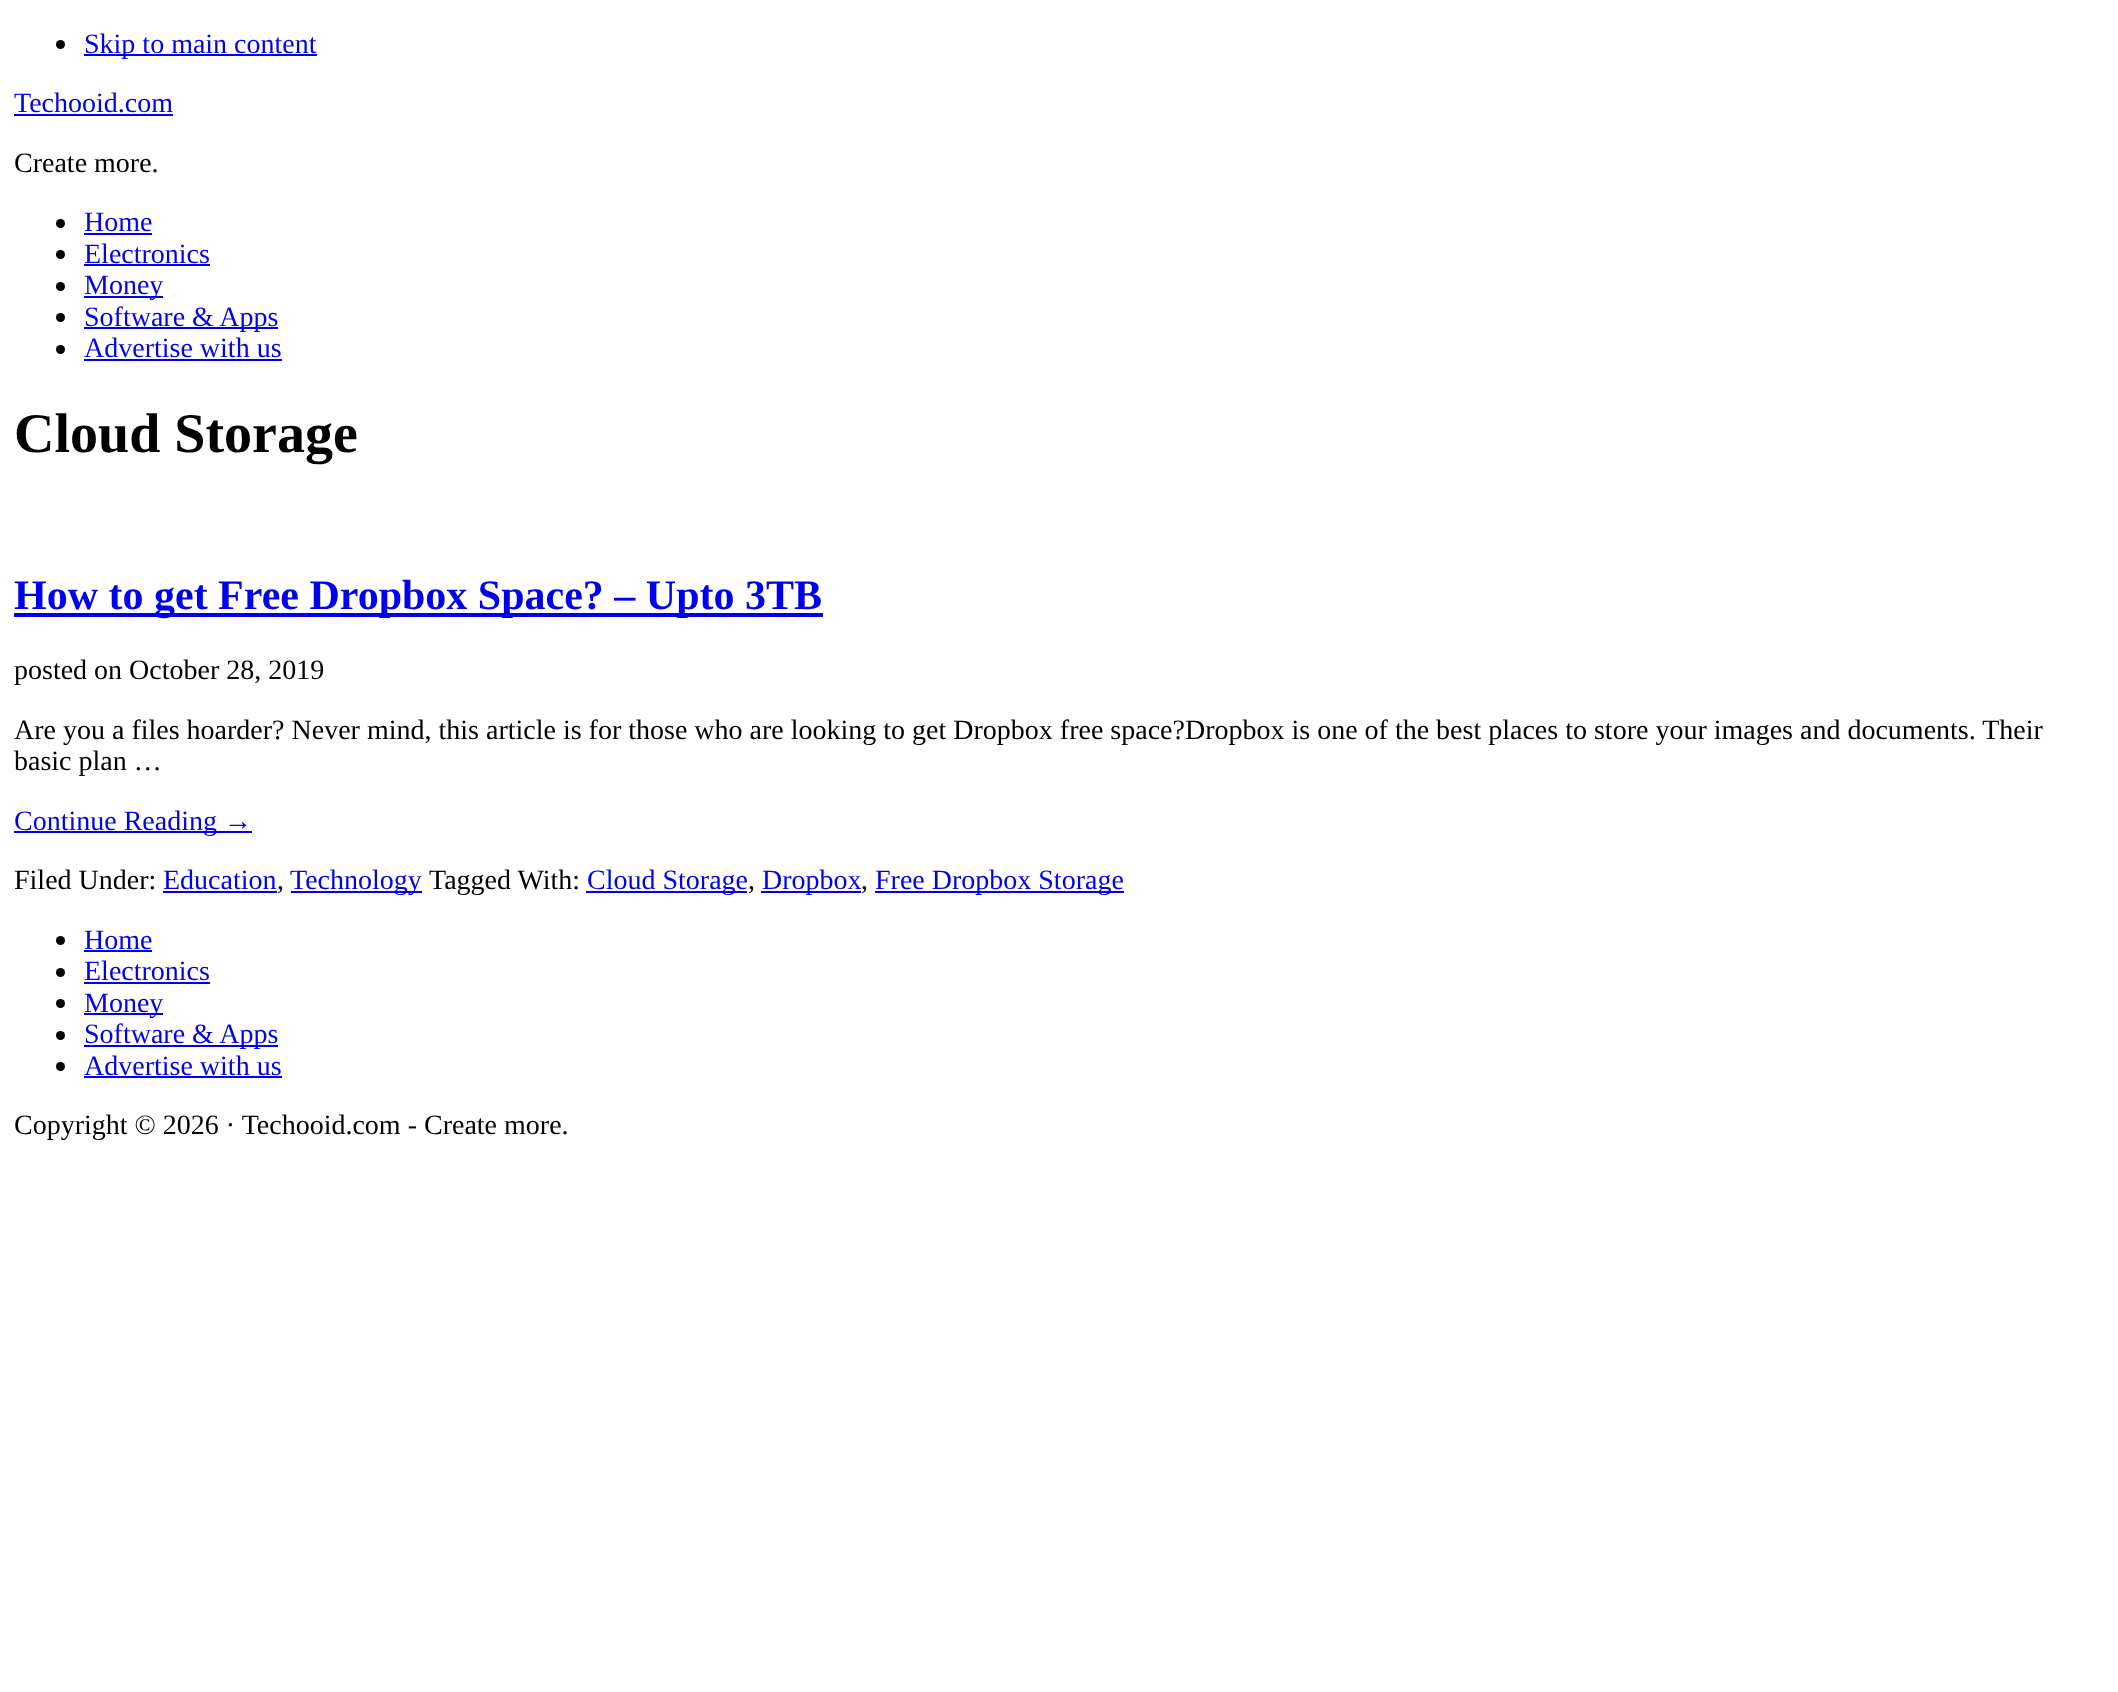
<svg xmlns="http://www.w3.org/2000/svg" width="2118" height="1692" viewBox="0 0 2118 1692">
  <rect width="100%" height="100%" fill="rgb(255,255,255)"/>
  <circle cx="60.5" cy="44.5" r="4.5" fill="rgb(0,0,0)"/>
  <rect x="84" y="54" width="233" height="2" fill="rgb(0,0,238)"/>
  <g font-family="Liberation Serif" font-size="28" fill="rgb(0,0,238)">
    <text x="84" y="53">Skip to main content</text>
    <text x="14" y="112">Techooid.com</text>
  </g>
  <rect x="14" y="114" width="159" height="2" fill="rgb(0,0,238)"/>
  <text x="14" y="172" font-family="Liberation Serif" font-size="28" fill="rgb(0,0,0)">Create more.</text>
  <circle cx="60.5" cy="223.5" r="4.5" fill="rgb(0,0,0)"/>
  <text x="84" y="231" font-family="Liberation Serif" font-size="28" fill="rgb(0,0,238)">Home</text>
  <rect x="84" y="233" width="68" height="2" fill="rgb(0,0,238)"/>
  <circle cx="60.5" cy="254.5" r="4.5" fill="rgb(0,0,0)"/>
  <text x="84" y="263" font-family="Liberation Serif" font-size="28" fill="rgb(0,0,238)">Electronics</text>
  <rect x="84" y="264" width="126" height="2" fill="rgb(0,0,238)"/>
  <circle cx="60.5" cy="286.5" r="4.5" fill="rgb(0,0,0)"/>
  <rect x="84" y="296" width="79" height="2" fill="rgb(0,0,238)"/>
  <text x="84" y="294" font-family="Liberation Serif" font-size="28" fill="rgb(0,0,238)">Money</text>
  <circle cx="60.5" cy="317.5" r="4.5" fill="rgb(0,0,0)"/>
  <rect x="84" y="327" width="194" height="2" fill="rgb(0,0,238)"/>
  <text x="84" y="326" font-family="Liberation Serif" font-size="28" fill="rgb(0,0,238)">Software &amp; Apps</text>
  <circle cx="60.5" cy="349.5" r="4.5" fill="rgb(0,0,0)"/>
  <text x="84" y="357" font-family="Liberation Serif" font-size="28" fill="rgb(0,0,238)">Advertise with us</text>
  <rect x="84" y="359" width="198" height="2" fill="rgb(0,0,238)"/>
  <text x="14" y="452" font-family="Liberation Serif" font-size="56" font-weight="bold" fill="rgb(0,0,0)">Cloud Storage</text>
  <rect x="14" y="613" width="809" height="4" fill="rgb(0,0,238)"/>
  <text x="14" y="609" font-family="Liberation Serif" font-size="42" font-weight="bold" fill="rgb(0,0,238)">How to get Free Dropbox Space? – Upto 3TB</text>
  <g font-family="Liberation Serif" font-size="28" fill="rgb(0,0,0)">
    <text x="14" y="679">posted on October 28, 2019</text>
    <text>
      <tspan x="14" y="739">Are you a files hoarder? Never mind, this article is for those who are looking to get Dropbox free space?Dropbox is one of the best places to store your images and documents. Their</tspan>
      <tspan x="14" y="770">basic plan …</tspan>
    </text>
  </g>
  <rect x="14" y="831" width="238" height="2" fill="rgb(0,0,238)"/>
  <text x="14" y="830" font-family="Liberation Serif" font-size="28" fill="rgb(0,0,238)">Continue Reading →</text>
  <text x="14" y="889" font-family="Liberation Serif" font-size="28" fill="rgb(0,0,0)">Filed Under:</text>
  <text x="163" y="889" font-family="Liberation Serif" font-size="28" fill="rgb(0,0,238)">Education</text>
  <text x="277" y="889" font-family="Liberation Serif" font-size="28" fill="rgb(0,0,0)">,</text>
  <rect x="163" y="891" width="114" height="2" fill="rgb(0,0,238)"/>
  <rect x="291" y="891" width="131" height="2" fill="rgb(0,0,238)"/>
  <text x="290" y="889" font-family="Liberation Serif" font-size="28" fill="rgb(0,0,238)">Technology</text>
  <text x="429" y="889" font-family="Liberation Serif" font-size="28" fill="rgb(0,0,0)">Tagged With:</text>
  <rect x="586" y="891" width="161" height="2" fill="rgb(0,0,238)"/>
  <text x="587" y="889" font-family="Liberation Serif" font-size="28" fill="rgb(0,0,238)">Cloud Storage</text>
  <text x="748" y="889" font-family="Liberation Serif" font-size="28" fill="rgb(0,0,0)">,</text>
  <rect x="761" y="891" width="100" height="2" fill="rgb(0,0,238)"/>
  <text x="762" y="889" font-family="Liberation Serif" font-size="28" fill="rgb(0,0,238)">Dropbox</text>
  <text x="861" y="889" font-family="Liberation Serif" font-size="28" fill="rgb(0,0,0)">,</text>
  <rect x="875" y="891" width="249" height="2" fill="rgb(0,0,238)"/>
  <text x="875" y="889" font-family="Liberation Serif" font-size="28" fill="rgb(0,0,238)">Free Dropbox Storage</text>
  <circle cx="60.5" cy="940.5" r="4.5" fill="rgb(0,0,0)"/>
  <text x="84" y="949" font-family="Liberation Serif" font-size="28" fill="rgb(0,0,238)">Home</text>
  <rect x="84" y="950" width="68" height="2" fill="rgb(0,0,238)"/>
  <circle cx="60.5" cy="972.5" r="4.5" fill="rgb(0,0,0)"/>
  <text x="84" y="980" font-family="Liberation Serif" font-size="28" fill="rgb(0,0,238)">Electronics</text>
  <rect x="84" y="982" width="126" height="2" fill="rgb(0,0,238)"/>
  <circle cx="60.5" cy="1003.5" r="4.5" fill="rgb(0,0,0)"/>
  <rect x="84" y="1013" width="79" height="2" fill="rgb(0,0,238)"/>
  <text x="84" y="1012" font-family="Liberation Serif" font-size="28" fill="rgb(0,0,238)">Money</text>
  <circle cx="60.5" cy="1035.5" r="4.5" fill="rgb(0,0,0)"/>
  <rect x="84" y="1045" width="194" height="2" fill="rgb(0,0,238)"/>
  <text x="84" y="1043" font-family="Liberation Serif" font-size="28" fill="rgb(0,0,238)">Software &amp; Apps</text>
  <circle cx="60.5" cy="1066.5" r="4.5" fill="rgb(0,0,0)"/>
  <text x="84" y="1075" font-family="Liberation Serif" font-size="28" fill="rgb(0,0,238)">Advertise with us</text>
  <rect x="84" y="1076" width="198" height="2" fill="rgb(0,0,238)"/>
  <text x="14" y="1134" font-family="Liberation Serif" font-size="28" fill="rgb(0,0,0)">Copyright © 2026 · Techooid.com - Create more.</text>
</svg>
